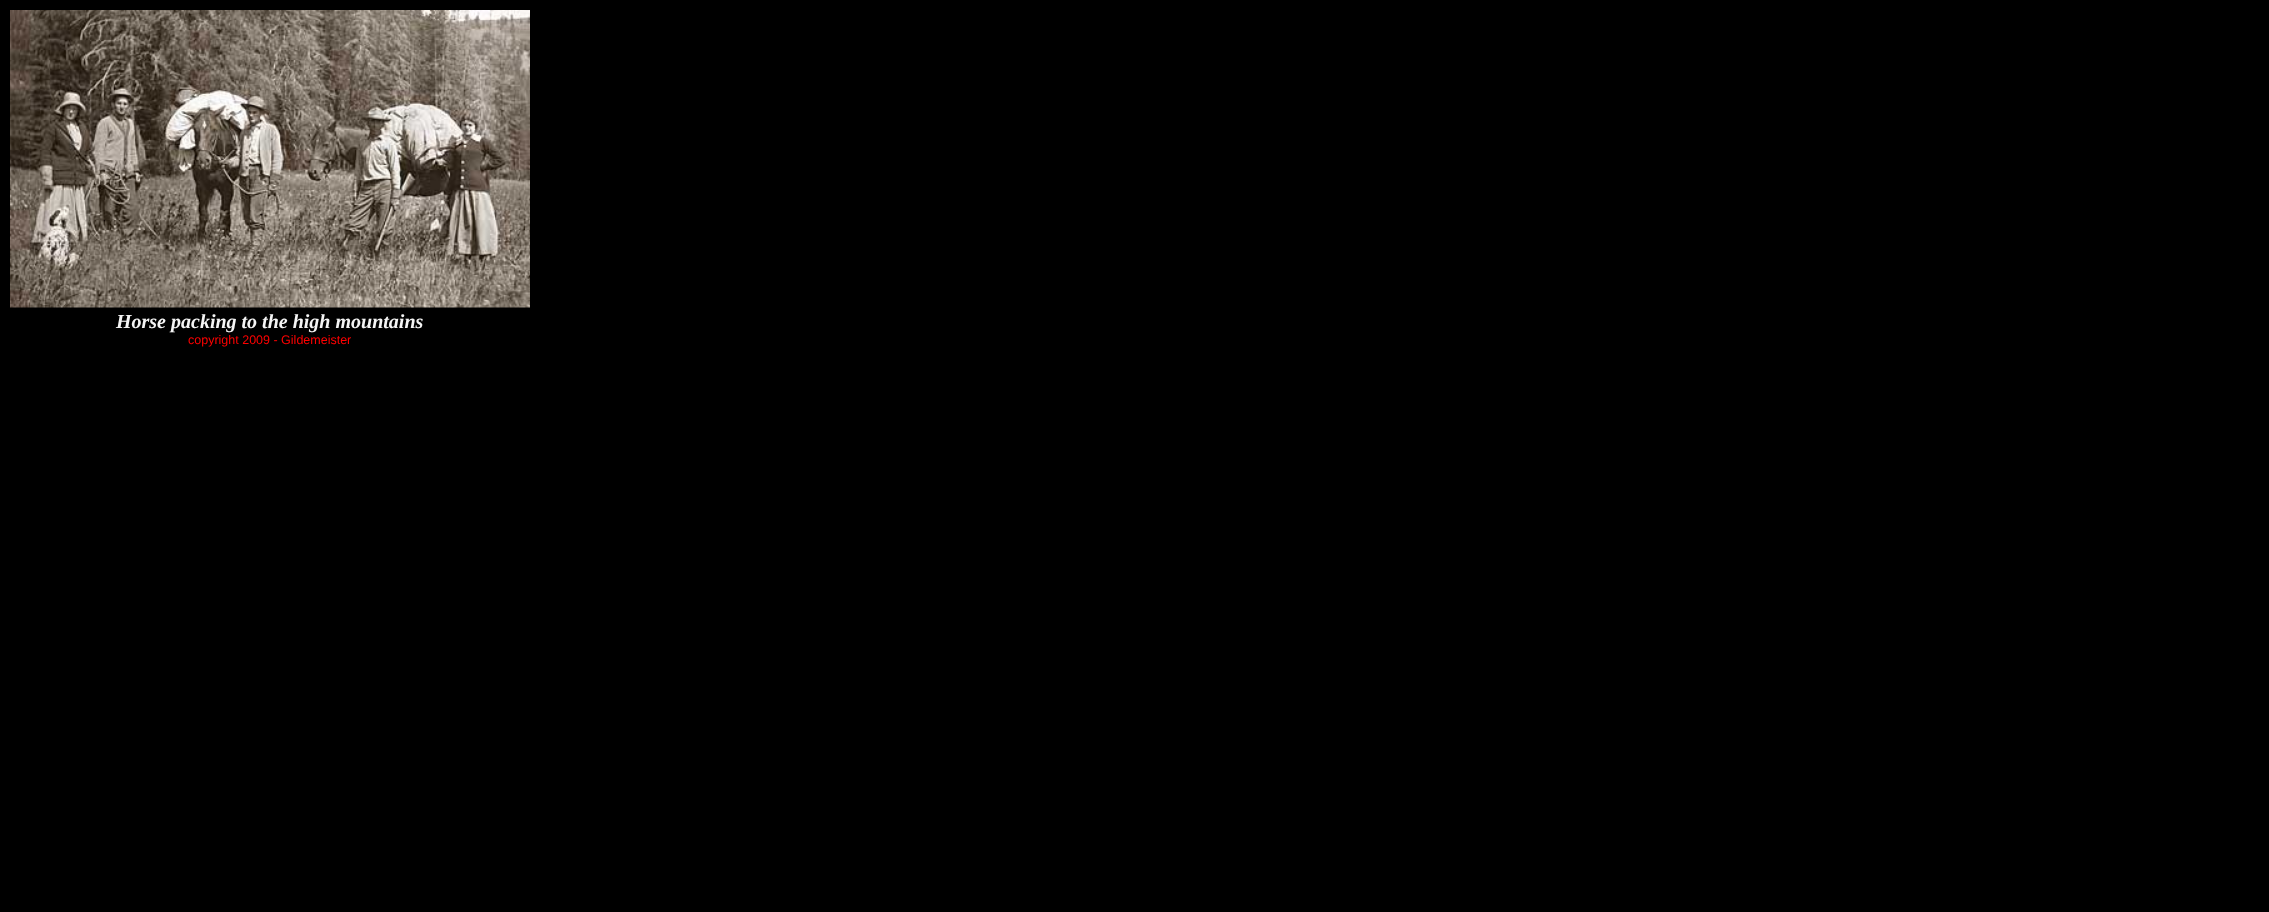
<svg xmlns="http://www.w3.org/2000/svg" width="2269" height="912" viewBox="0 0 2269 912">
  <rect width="100%" height="100%" fill="rgb(0,0,0)"/>
  <image x="10" y="10" width="520" height="298" href="pic1.png"/>
  <text x="116" y="328" font-family="Liberation Serif" font-size="20" font-weight="bold" font-style="italic" fill="rgb(245,245,245)">Horse packing to the high mountains</text>
  <text x="188" y="344" font-family="Liberation Sans" font-size="12.5" fill="rgb(255,0,0)">copyright 2009 - Gildemeister</text>
</svg>
